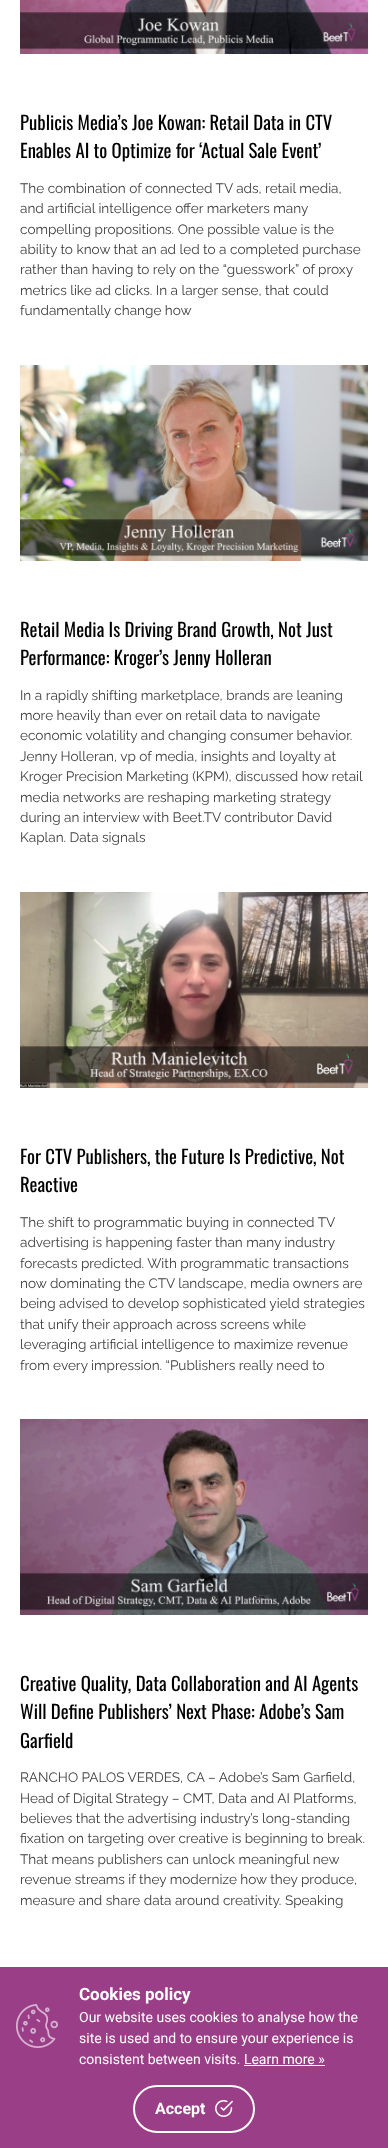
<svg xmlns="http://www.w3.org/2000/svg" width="388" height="2148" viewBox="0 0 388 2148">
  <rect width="100%" height="100%" fill="rgb(255,255,255)"/>
  <image x="20" y="0" width="348" height="54" href="pic1.png"/>
  <g font-family="Oswald" font-size="18.75" fill="rgb(0,0,0)">
    <text>
      <tspan x="20" y="130">Publicis Media’s Joe Kowan: Retail Data in CTV</tspan>
      <tspan x="20" y="158">Enables AI to Optimize for ‘Actual Sale Event’</tspan>
    </text>
  </g>
  <g font-family="Raleway" font-size="13.6" fill="rgb(64,64,64)">
    <text>
      <tspan x="20" y="193">The combination of connected TV ads, retail media,</tspan>
      <tspan x="20" y="213">and artificial intelligence offer marketers many</tspan>
      <tspan x="20" y="234">compelling propositions. One possible value is the</tspan>
      <tspan x="20" y="254">ability to know that an ad led to a completed purchase</tspan>
      <tspan x="20" y="274">rather than having to rely on the “guesswork” of proxy</tspan>
      <tspan x="20" y="295">metrics like ad clicks. In a larger sense, that could</tspan>
      <tspan x="20" y="315">fundamentally change how</tspan>
    </text>
  </g>
  <image x="20" y="365" width="348" height="196" href="pic2.png"/>
  <g font-family="Oswald" font-size="18.75" fill="rgb(0,0,0)">
    <text>
      <tspan x="20" y="637">Retail Media Is Driving Brand Growth, Not Just</tspan>
      <tspan x="20" y="665">Performance: Kroger’s Jenny Holleran</tspan>
    </text>
  </g>
  <g font-family="Raleway" font-size="13.6" fill="rgb(64,64,64)">
    <text>
      <tspan x="20" y="700">In a rapidly shifting marketplace, brands are leaning</tspan>
      <tspan x="20" y="720">more heavily than ever on retail data to navigate</tspan>
      <tspan x="20" y="740">economic volatility and changing consumer behavior.</tspan>
      <tspan x="20" y="761">Jenny Holleran, vp of media, insights and loyalty at</tspan>
      <tspan x="20" y="781">Kroger Precision Marketing (KPM), discussed how retail</tspan>
      <tspan x="20" y="802">media networks are reshaping marketing strategy</tspan>
      <tspan x="20" y="822">during an interview with Beet.TV contributor David</tspan>
      <tspan x="20" y="842">Kaplan. Data signals</tspan>
    </text>
  </g>
  <image x="20" y="892" width="348" height="196" href="pic3.png"/>
  <g font-family="Oswald" font-size="18.75" fill="rgb(0,0,0)">
    <text>
      <tspan x="20" y="1164">For CTV Publishers, the Future Is Predictive, Not</tspan>
      <tspan x="20" y="1192">Reactive</tspan>
    </text>
  </g>
  <g font-family="Raleway" font-size="13.6" fill="rgb(64,64,64)">
    <text>
      <tspan x="20" y="1227">The shift to programmatic buying in connected TV</tspan>
      <tspan x="20" y="1247">advertising is happening faster than many industry</tspan>
      <tspan x="20" y="1268">forecasts predicted. With programmatic transactions</tspan>
      <tspan x="20" y="1288">now dominating the CTV landscape, media owners are</tspan>
      <tspan x="20" y="1308">being advised to develop sophisticated yield strategies</tspan>
      <tspan x="20" y="1329">that unify their approach across screens while</tspan>
      <tspan x="20" y="1349">leveraging artificial intelligence to maximize revenue</tspan>
      <tspan x="20" y="1370">from every impression. “Publishers really need to</tspan>
    </text>
  </g>
  <image x="20" y="1419" width="348" height="196" href="pic4.png"/>
  <g font-family="Oswald" font-size="18.75" fill="rgb(0,0,0)">
    <text>
      <tspan x="20" y="1691">Creative Quality, Data Collaboration and AI Agents</tspan>
      <tspan x="20" y="1719">Will Define Publishers’ Next Phase: Adobe’s Sam</tspan>
      <tspan x="20" y="1748">Garfield</tspan>
    </text>
  </g>
  <g font-family="Raleway" font-size="13.6" fill="rgb(64,64,64)">
    <text>
      <tspan x="20" y="1782">RANCHO PALOS VERDES, CA – Adobe’s Sam Garfield,</tspan>
      <tspan x="20" y="1803">Head of Digital Strategy – CMT, Data and AI Platforms,</tspan>
      <tspan x="20" y="1823">believes that the advertising industry’s long-standing</tspan>
      <tspan x="20" y="1843">fixation on targeting over creative is beginning to break.</tspan>
      <tspan x="20" y="1864">That means publishers can unlock meaningful new</tspan>
      <tspan x="20" y="1884">revenue streams if they modernize how they produce,</tspan>
      <tspan x="20" y="1905">measure and share data around creativity. Speaking</tspan>
    </text>
  </g>
  <rect x="0" y="1967" width="388" height="181" fill="rgb(154,62,135)"/>
  <image x="16" y="2004" width="42" height="44" href="pic5.png"/>
  <text x="79" y="2000" font-family="Roboto" font-size="17" font-weight="bold" fill="rgb(255,255,255)">Cookies policy</text>
  <g font-family="Roboto" font-size="14" fill="rgb(255,255,255)">
    <text>
      <tspan x="79" y="2022">Our website uses cookies to analyse how the</tspan>
      <tspan x="79" y="2043">site is used and to ensure your experience is</tspan>
      <tspan x="79" y="2064">consistent between visits. Learn more »</tspan>
    </text>
  </g>
  <rect x="244" y="2065" width="81" height="1" fill="rgb(255,255,255)"/>
  <rect x="134" y="2086" width="120" height="46" rx="23" fill="none" stroke="rgb(255,255,255)" stroke-width="2"/>
  <text x="155" y="2114" font-family="Roboto" font-size="16" font-weight="bold" fill="rgb(255,255,255)">Accept</text>
  <image x="215" y="2100" width="18" height="17" href="pic6.png"/>
</svg>
